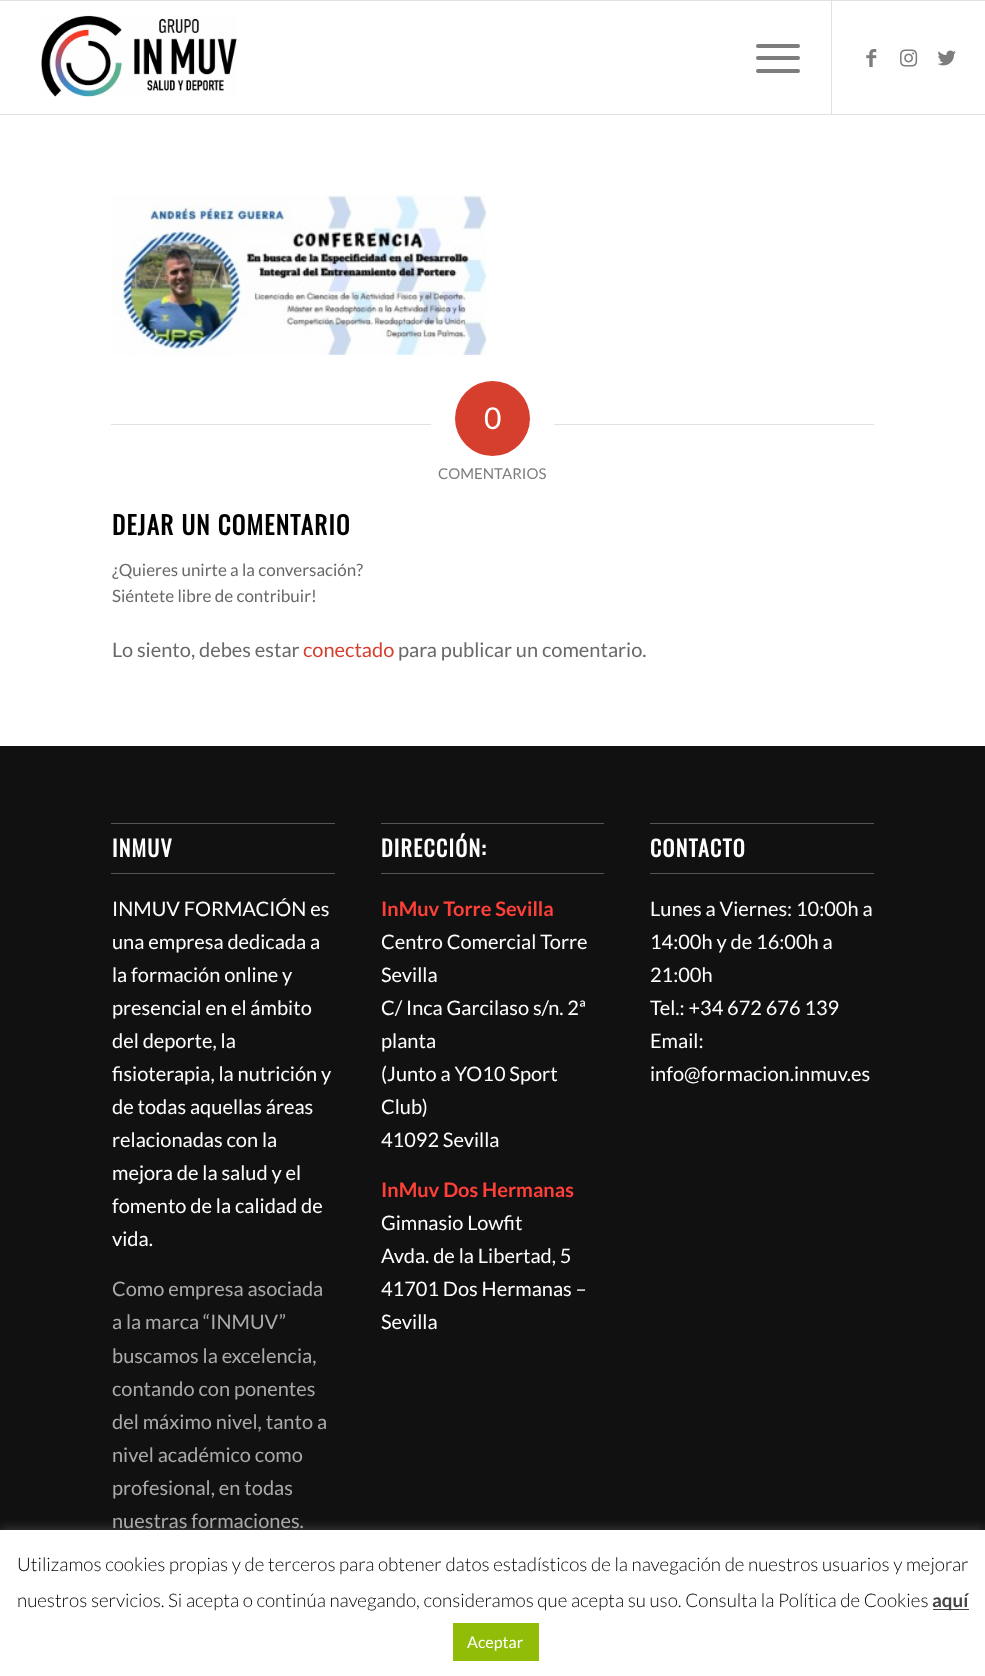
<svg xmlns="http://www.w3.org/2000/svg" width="985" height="1676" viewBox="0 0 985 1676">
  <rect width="100%" height="100%" fill="rgb(255,255,255)"/>
  <rect x="0" y="0" width="985" height="1" fill="rgb(225,225,225)"/>
  <rect x="0" y="114" width="985" height="1" fill="rgb(225,225,225)"/>
  <image x="41" y="15" width="196" height="82" href="pic1.png"/>
  <rect x="831" y="1" width="1" height="113" fill="rgb(225,225,225)"/>
  <rect x="756" y="56" width="44" height="4" rx="2" fill="rgb(125,125,125)"/>
  <rect x="756" y="44" width="44" height="4" rx="2" fill="rgb(125,125,125)"/>
  <rect x="756" y="69" width="44" height="4" rx="2" fill="rgb(125,125,125)"/>
  <image x="866" y="49" width="11" height="18" href="pic2.png"/>
  <image x="900" y="49" width="18" height="18" href="pic3.png"/>
  <image x="937" y="50" width="19" height="16" href="pic4.png"/>
  <image x="111" y="195" width="376" height="160" href="pic5.png"/>
  <rect x="111" y="424" width="320" height="1" fill="rgb(225,225,225)"/>
  <circle cx="492.5" cy="418.5" r="37.5" fill="rgb(214,62,45)"/>
  <text x="484" y="429" font-family="Lato" font-size="30" fill="rgb(255,255,255)">0</text>
  <rect x="554" y="424" width="320" height="1" fill="rgb(225,225,225)"/>
  <text x="438" y="479" font-family="Lato" font-size="15" fill="rgb(125,125,125)">COMENTARIOS</text>
  <text x="112" y="535" font-family="Oswald" font-size="25" font-weight="bold" letter-spacing="1.25" fill="rgb(0,0,0)">DEJAR UN COMENTARIO</text>
  <g font-family="Lato" font-size="17" fill="rgb(105,105,105)">
    <text>
      <tspan x="112" y="576">¿Quieres unirte a la conversación?</tspan>
      <tspan x="112" y="602">Siéntete libre de contribuir!</tspan>
    </text>
  </g>
  <text x="112" y="657" font-family="Lato" font-size="20" fill="rgb(105,105,105)">Lo siento, debes estar</text>
  <text x="303" y="657" font-family="Lato" font-size="20" fill="rgb(214,62,45)">conectado</text>
  <text x="398" y="657" font-family="Lato" font-size="20" fill="rgb(105,105,105)">para publicar un comentario.</text>
  <rect x="0" y="746" width="985" height="784" fill="rgb(17,17,17)"/>
  <rect x="111" y="823" width="224" height="1" fill="rgb(85,85,85)"/>
  <rect x="111" y="873" width="224" height="1" fill="rgb(85,85,85)"/>
  <text x="112" y="857" font-family="Oswald" font-size="22" font-weight="bold" letter-spacing="1.25" fill="rgb(255,255,255)">INMUV</text>
  <g font-family="Lato" font-size="20" fill="rgb(255,255,255)">
    <text>
      <tspan x="112" y="916">INMUV FORMACIÓN es</tspan>
      <tspan x="112" y="949">una empresa dedicada a</tspan>
      <tspan x="112" y="982">la formación online y</tspan>
      <tspan x="112" y="1015">presencial en el ámbito</tspan>
      <tspan x="112" y="1048">del deporte, la</tspan>
      <tspan x="112" y="1081">fisioterapia, la nutrición y</tspan>
      <tspan x="112" y="1114">de todas aquellas áreas</tspan>
      <tspan x="112" y="1147">relacionadas con la</tspan>
      <tspan x="112" y="1180">mejora de la salud y el</tspan>
      <tspan x="112" y="1213">fomento de la calidad de</tspan>
      <tspan x="112" y="1246">vida.</tspan>
    </text>
  </g>
  <g font-family="Lato" font-size="20" fill="rgb(170,170,170)">
    <text>
      <tspan x="112" y="1296">Como empresa asociada</tspan>
      <tspan x="112" y="1329">a la marca “INMUV”</tspan>
      <tspan x="112" y="1363">buscamos la excelencia,</tspan>
      <tspan x="112" y="1396">contando con ponentes</tspan>
      <tspan x="112" y="1429">del máximo nivel, tanto a</tspan>
      <tspan x="112" y="1462">nivel académico como</tspan>
      <tspan x="112" y="1495">profesional, en todas</tspan>
      <tspan x="112" y="1528">nuestras formaciones.</tspan>
    </text>
  </g>
  <rect x="381" y="823" width="223" height="1" fill="rgb(85,85,85)"/>
  <rect x="381" y="873" width="223" height="1" fill="rgb(85,85,85)"/>
  <text x="381" y="857" font-family="Oswald" font-size="22" font-weight="bold" letter-spacing="1.25" fill="rgb(255,255,255)">DIRECCIÓN:</text>
  <text x="381" y="916" font-family="Lato" font-size="20" font-weight="bold" fill="rgb(255,64,57)">InMuv Torre Sevilla</text>
  <g font-family="Lato" font-size="20" fill="rgb(255,255,255)">
    <text>
      <tspan x="381" y="949">Centro Comercial Torre</tspan>
      <tspan x="381" y="982">Sevilla</tspan>
      <tspan x="381" y="1015">C/ Inca Garcilaso s/n. 2ª</tspan>
      <tspan x="381" y="1048">planta</tspan>
      <tspan x="381" y="1081">(Junto a YO10 Sport</tspan>
      <tspan x="381" y="1114">Club)</tspan>
      <tspan x="381" y="1147">41092 Sevilla</tspan>
    </text>
  </g>
  <text x="381" y="1197" font-family="Lato" font-size="20" font-weight="bold" fill="rgb(255,64,57)">InMuv Dos Hermanas</text>
  <g font-family="Lato" font-size="20" fill="rgb(255,255,255)">
    <text>
      <tspan x="381" y="1230">Gimnasio Lowfit</tspan>
      <tspan x="381" y="1263">Avda. de la Libertad, 5</tspan>
      <tspan x="381" y="1296">41701 Dos Hermanas –</tspan>
      <tspan x="381" y="1329">Sevilla</tspan>
    </text>
  </g>
  <rect x="650" y="823" width="224" height="1" fill="rgb(85,85,85)"/>
  <rect x="650" y="873" width="224" height="1" fill="rgb(85,85,85)"/>
  <text x="650" y="857" font-family="Oswald" font-size="22" font-weight="bold" letter-spacing="1.25" fill="rgb(255,255,255)">CONTACTO</text>
  <g font-family="Lato" font-size="20" fill="rgb(255,255,255)">
    <text>
      <tspan x="650" y="916">Lunes a Viernes: 10:00h a</tspan>
      <tspan x="650" y="949">14:00h y de 16:00h a</tspan>
      <tspan x="650" y="982">21:00h</tspan>
      <tspan x="650" y="1015">Tel.: +34 672 676 139</tspan>
      <tspan x="650" y="1048">Email:</tspan>
      <tspan x="650" y="1081">info@formacion.inmuv.es</tspan>
    </text>
  </g>
  <rect x="0" y="1529" width="985" height="146" fill="rgba(172,171,171,0.3)" filter="blur(6px)"/>
  <rect x="0" y="1530" width="985" height="146" fill="rgb(255,255,255)"/>
  <g font-family="Lato" font-size="18.75" font-weight="300" fill="rgb(0,0,0)">
    <text>
      <tspan x="17" y="1571">Utilizamos cookies propias y de terceros para obtener datos estadísticos de la navegación de nuestros usuarios y mejorar</tspan>
      <tspan x="17" y="1607">nuestros servicios. Si acepta o continúa navegando, consideramos que acepta su uso. Consulta la Política de Cookies</tspan>
    </text>
  </g>
  <rect x="933" y="1609" width="36" height="1" fill="rgb(68,68,68)"/>
  <text x="932" y="1607" font-family="Lato" font-size="18.75" font-weight="bold" fill="rgb(68,68,68)">aquí</text>
  <rect x="453" y="1623" width="86" height="38" fill="rgb(145,189,9)"/>
  <text x="467" y="1648" font-family="Lato" font-size="16" fill="rgb(255,255,255)">Aceptar</text>
</svg>
